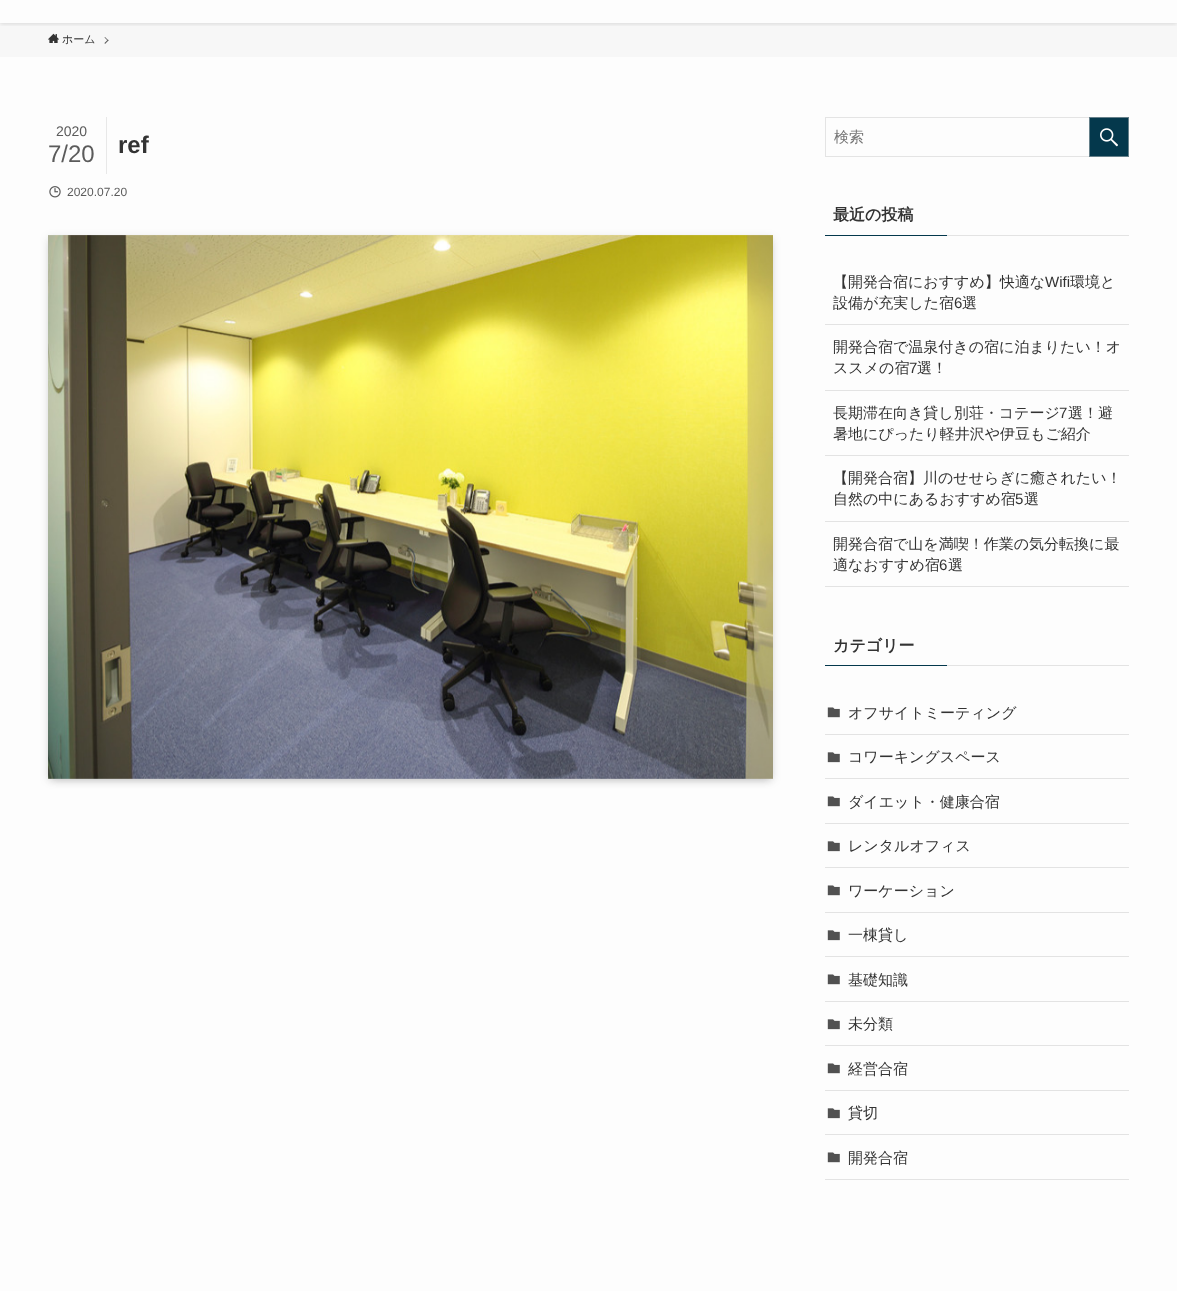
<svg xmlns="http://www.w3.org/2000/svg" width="1177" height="1291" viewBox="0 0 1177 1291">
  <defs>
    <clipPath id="clip1"><rect x="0" y="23" width="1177" height="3"/></clipPath>
  </defs>
  <rect width="100%" height="100%" fill="rgb(253,253,253)"/>
  <rect x="0" y="23" width="1177" height="34" fill="rgb(247,247,247)"/>
  <g clip-path="url(#clip1)">
    <rect x="0" y="-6" width="1177" height="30" fill="rgba(0,0,0,0.12)" filter="blur(2px)"/>
  </g>
  <image x="48" y="33" width="11" height="10" href="pic1.png"/>
  <text x="62" y="43" font-family="WenQuanYi Zen Hei" font-size="11" font-weight="500" fill="rgb(51,51,51)">ホーム</text>
  <path d="M105 37L108.5 40.5L108 41L104.5 37.5Z" fill="rgb(90,90,90)"/>
  <path d="M108 39.5L108.5 40.5L105 44L104.5 43Z" fill="rgb(90,90,90)"/>
  <rect x="106" y="117" width="1" height="57" fill="rgb(232,232,232)"/>
  <text x="56" y="136" font-family="Liberation Sans" font-size="14" fill="rgb(91,91,91)">2020</text>
  <text x="48" y="162" font-family="Liberation Sans" font-size="24" fill="rgb(91,91,91)">7/20</text>
  <text x="118" y="153" font-family="Liberation Sans" font-size="24" font-weight="bold" fill="rgb(51,51,51)">ref</text>
  <image x="49" y="186" width="12" height="12" href="pic2.png"/>
  <text x="67" y="196" font-family="Liberation Sans" font-size="12" fill="rgb(91,91,91)">2020.07.20</text>
  <rect x="52" y="243" width="717" height="536" fill="rgba(0,0,0,0.2)" filter="blur(4px)"/>
  <rect x="48" y="237" width="725" height="544" fill="rgba(0,0,0,0.1)" filter="blur(4px)"/>
  <image x="48" y="235" width="725" height="544" href="pic3.png"/>
  <rect x="825.5" y="117.5" width="303" height="39" fill="none" stroke="rgb(228,228,228)"/>
  <text x="834" y="142" font-family="WenQuanYi Zen Hei" font-size="15" font-weight="500" fill="rgb(117,117,117)">検索</text>
  <rect x="1089.5" y="117.5" width="39" height="39" fill="rgb(4,56,76)" stroke="rgb(102,128,138)"/>
  <image x="1100" y="128" width="18" height="19" href="pic4.png"/>
  <text x="833" y="220" font-family="WenQuanYi Zen Hei" font-size="16" font-weight="bold" fill="rgb(51,51,51)">最近の投稿</text>
  <rect x="825" y="235" width="122" height="1" fill="rgb(4,56,76)"/>
  <rect x="947" y="235" width="182" height="1" fill="rgb(227,227,227)"/>
  <rect x="825" y="324" width="304" height="1" fill="rgb(227,227,227)"/>
  <text x="833" y="287" font-family="WenQuanYi Zen Hei" font-size="15" font-weight="500" fill="rgb(51,51,51)">【開発合宿におすすめ】快適な</text>
  <text x="1045" y="287" font-family="Liberation Sans" font-size="15" fill="rgb(51,51,51)">Wifi</text>
  <g font-family="WenQuanYi Zen Hei" font-size="15" font-weight="500" fill="rgb(51,51,51)">
    <text x="1070" y="287">環境と</text>
    <text x="833" y="308">設備が充実した宿</text>
  </g>
  <text x="954" y="308" font-family="Liberation Sans" font-size="15" fill="rgb(51,51,51)">6</text>
  <text x="962" y="308" font-family="WenQuanYi Zen Hei" font-size="15" font-weight="500" fill="rgb(51,51,51)">選</text>
  <rect x="825" y="390" width="304" height="1" fill="rgb(227,227,227)"/>
  <g font-family="WenQuanYi Zen Hei" font-size="15" font-weight="500" fill="rgb(51,51,51)">
    <text>
      <tspan x="833" y="352">開発合宿で温泉付きの宿に泊まりたい！オ</tspan>
      <tspan x="833" y="373">ススメの宿</tspan>
    </text>
  </g>
  <text x="909" y="373" font-family="Liberation Sans" font-size="15" fill="rgb(51,51,51)">7</text>
  <text x="917" y="373" font-family="WenQuanYi Zen Hei" font-size="15" font-weight="500" fill="rgb(51,51,51)">選！</text>
  <rect x="825" y="455" width="304" height="1" fill="rgb(227,227,227)"/>
  <text x="833" y="418" font-family="WenQuanYi Zen Hei" font-size="15" font-weight="500" fill="rgb(51,51,51)">長期滞在向き貸し別荘・コテージ</text>
  <text x="1059" y="418" font-family="Liberation Sans" font-size="15" fill="rgb(51,51,51)">7</text>
  <g font-family="WenQuanYi Zen Hei" font-size="15" font-weight="500" fill="rgb(51,51,51)">
    <text x="1068" y="418">選！避</text>
    <text x="833" y="439">暑地にぴったり軽井沢や伊豆もご紹介</text>
  </g>
  <rect x="825" y="521" width="304" height="1" fill="rgb(227,227,227)"/>
  <g font-family="WenQuanYi Zen Hei" font-size="15" font-weight="500" fill="rgb(51,51,51)">
    <text>
      <tspan x="833" y="483">【開発合宿】川のせせらぎに癒されたい！</tspan>
      <tspan x="833" y="504">自然の中にあるおすすめ宿</tspan>
    </text>
  </g>
  <text x="1015" y="504" font-family="Liberation Sans" font-size="15" fill="rgb(51,51,51)">5</text>
  <text x="1024" y="504" font-family="WenQuanYi Zen Hei" font-size="15" font-weight="500" fill="rgb(51,51,51)">選</text>
  <rect x="825" y="586" width="304" height="1" fill="rgb(227,227,227)"/>
  <g font-family="WenQuanYi Zen Hei" font-size="15" font-weight="500" fill="rgb(51,51,51)">
    <text>
      <tspan x="833" y="549">開発合宿で山を満喫！作業の気分転換に最</tspan>
      <tspan x="833" y="570">適なおすすめ宿</tspan>
    </text>
  </g>
  <text x="939" y="570" font-family="Liberation Sans" font-size="15" fill="rgb(51,51,51)">6</text>
  <text x="948" y="570" font-family="WenQuanYi Zen Hei" font-size="15" font-weight="500" fill="rgb(51,51,51)">選</text>
  <text x="833" y="651" font-family="WenQuanYi Zen Hei" font-size="16" font-weight="bold" fill="rgb(51,51,51)">カテゴリー</text>
  <rect x="825" y="665" width="122" height="1" fill="rgb(4,56,76)"/>
  <rect x="947" y="665" width="182" height="1" fill="rgb(227,227,227)"/>
  <rect x="825" y="734" width="304" height="1" fill="rgb(227,227,227)"/>
  <image x="827" y="707" width="13" height="11" href="pic5.png"/>
  <text x="848" y="718" font-family="WenQuanYi Zen Hei" font-size="15" font-weight="500" fill="rgb(51,51,51)">オフサイトミーティング</text>
  <rect x="825" y="778" width="304" height="1" fill="rgb(227,227,227)"/>
  <image x="827" y="752" width="13" height="11" href="pic6.png"/>
  <text x="848" y="762" font-family="WenQuanYi Zen Hei" font-size="15" font-weight="500" fill="rgb(51,51,51)">コワーキングスペース</text>
  <rect x="825" y="823" width="304" height="1" fill="rgb(227,227,227)"/>
  <image x="827" y="796" width="13" height="11" href="pic5.png"/>
  <text x="848" y="807" font-family="WenQuanYi Zen Hei" font-size="15" font-weight="500" fill="rgb(51,51,51)">ダイエット・健康合宿</text>
  <rect x="825" y="867" width="304" height="1" fill="rgb(227,227,227)"/>
  <image x="827" y="841" width="13" height="11" href="pic6.png"/>
  <text x="848" y="851" font-family="WenQuanYi Zen Hei" font-size="15" font-weight="500" fill="rgb(51,51,51)">レンタルオフィス</text>
  <rect x="825" y="912" width="304" height="1" fill="rgb(227,227,227)"/>
  <image x="827" y="885" width="13" height="11" href="pic5.png"/>
  <text x="848" y="896" font-family="WenQuanYi Zen Hei" font-size="15" font-weight="500" fill="rgb(51,51,51)">ワーケーション</text>
  <rect x="825" y="956" width="304" height="1" fill="rgb(227,227,227)"/>
  <image x="827" y="930" width="13" height="11" href="pic6.png"/>
  <text x="848" y="940" font-family="WenQuanYi Zen Hei" font-size="15" font-weight="500" fill="rgb(51,51,51)">一棟貸し</text>
  <rect x="825" y="1001" width="304" height="1" fill="rgb(227,227,227)"/>
  <image x="827" y="974" width="13" height="11" href="pic5.png"/>
  <text x="848" y="985" font-family="WenQuanYi Zen Hei" font-size="15" font-weight="500" fill="rgb(51,51,51)">基礎知識</text>
  <rect x="825" y="1045" width="304" height="1" fill="rgb(227,227,227)"/>
  <image x="827" y="1019" width="13" height="11" href="pic6.png"/>
  <text x="848" y="1029" font-family="WenQuanYi Zen Hei" font-size="15" font-weight="500" fill="rgb(51,51,51)">未分類</text>
  <rect x="825" y="1090" width="304" height="1" fill="rgb(227,227,227)"/>
  <image x="827" y="1063" width="13" height="11" href="pic5.png"/>
  <text x="848" y="1074" font-family="WenQuanYi Zen Hei" font-size="15" font-weight="500" fill="rgb(51,51,51)">経営合宿</text>
  <rect x="825" y="1134" width="304" height="1" fill="rgb(227,227,227)"/>
  <image x="827" y="1108" width="13" height="11" href="pic6.png"/>
  <text x="848" y="1118" font-family="WenQuanYi Zen Hei" font-size="15" font-weight="500" fill="rgb(51,51,51)">貸切</text>
  <rect x="825" y="1179" width="304" height="1" fill="rgb(227,227,227)"/>
  <image x="827" y="1152" width="13" height="11" href="pic5.png"/>
  <text x="848" y="1163" font-family="WenQuanYi Zen Hei" font-size="15" font-weight="500" fill="rgb(51,51,51)">開発合宿</text>
</svg>
